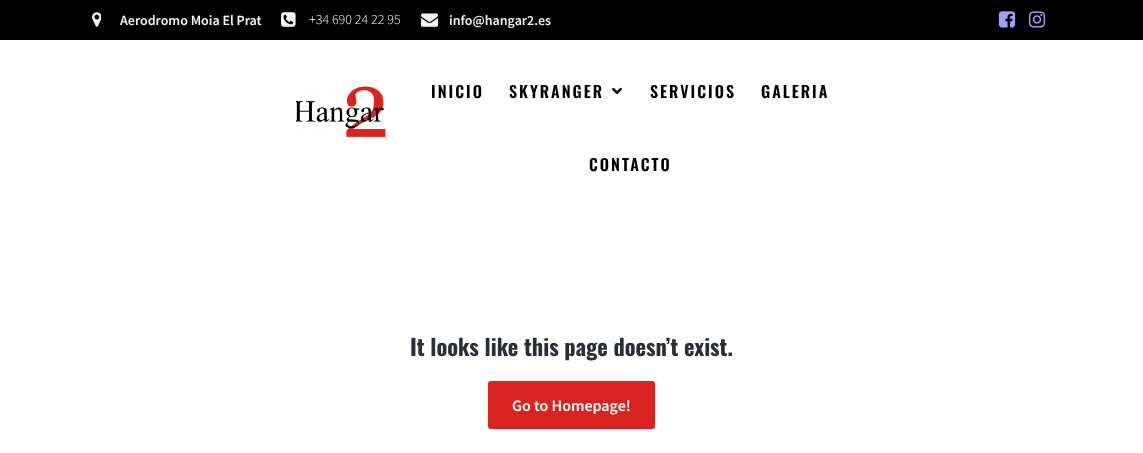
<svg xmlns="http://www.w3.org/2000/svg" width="1143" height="453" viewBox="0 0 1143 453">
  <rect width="100%" height="100%" fill="rgb(255,255,255)"/>
  <rect x="0" y="0" width="1143" height="40" fill="rgb(0,0,0)"/>
  <image x="92" y="12" width="9" height="15" href="pic1.png"/>
  <text x="120" y="25" font-family="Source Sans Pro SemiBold" font-size="14" font-weight="600" fill="rgb(244,244,247)">Aerodromo Moia El Prat</text>
  <image x="281" y="12" width="15" height="15" href="pic2.png"/>
  <text x="309" y="24" font-family="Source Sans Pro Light" font-size="14" font-weight="300" fill="rgb(244,244,247)">+34 690 24 22 95</text>
  <image x="421" y="13" width="17" height="14" href="pic3.png"/>
  <text x="449" y="25" font-family="Source Sans Pro SemiBold" font-size="14" font-weight="600" fill="rgb(244,244,247)">info@hangar2.es</text>
  <image x="998" y="11" width="18" height="17" href="pic4.png"/>
  <image x="1028" y="11" width="18" height="17" href="pic5.png"/>
  <image x="296" y="86" width="90" height="52" href="pic6.png"/>
  <g font-family="Oswald" font-size="16" font-weight="600" letter-spacing="2" fill="rgb(6,0,0)">
    <text x="431" y="98">INICIO</text>
    <text x="509" y="98">SKYRANGER</text>
  </g>
  <image x="612" y="87" width="10" height="8" href="pic7.png"/>
  <g font-family="Oswald" font-size="16" font-weight="600" letter-spacing="2" fill="rgb(6,0,0)">
    <text x="650" y="98">SERVICIOS</text>
    <text x="761" y="98">GALERIA</text>
    <text x="589" y="171">CONTACTO</text>
  </g>
  <text x="410" y="356" font-family="Oswald" font-size="22.4" font-weight="bold" fill="rgb(41,46,56)">It looks like this page doesn’t exist.</text>
  <rect x="488" y="381" width="167" height="48" rx="3" fill="rgb(217,34,34)"/>
  <text x="512" y="411" font-family="Source Sans Pro SemiBold" font-size="16" font-weight="600" fill="rgb(255,255,255)">Go to Homepage!</text>
</svg>
